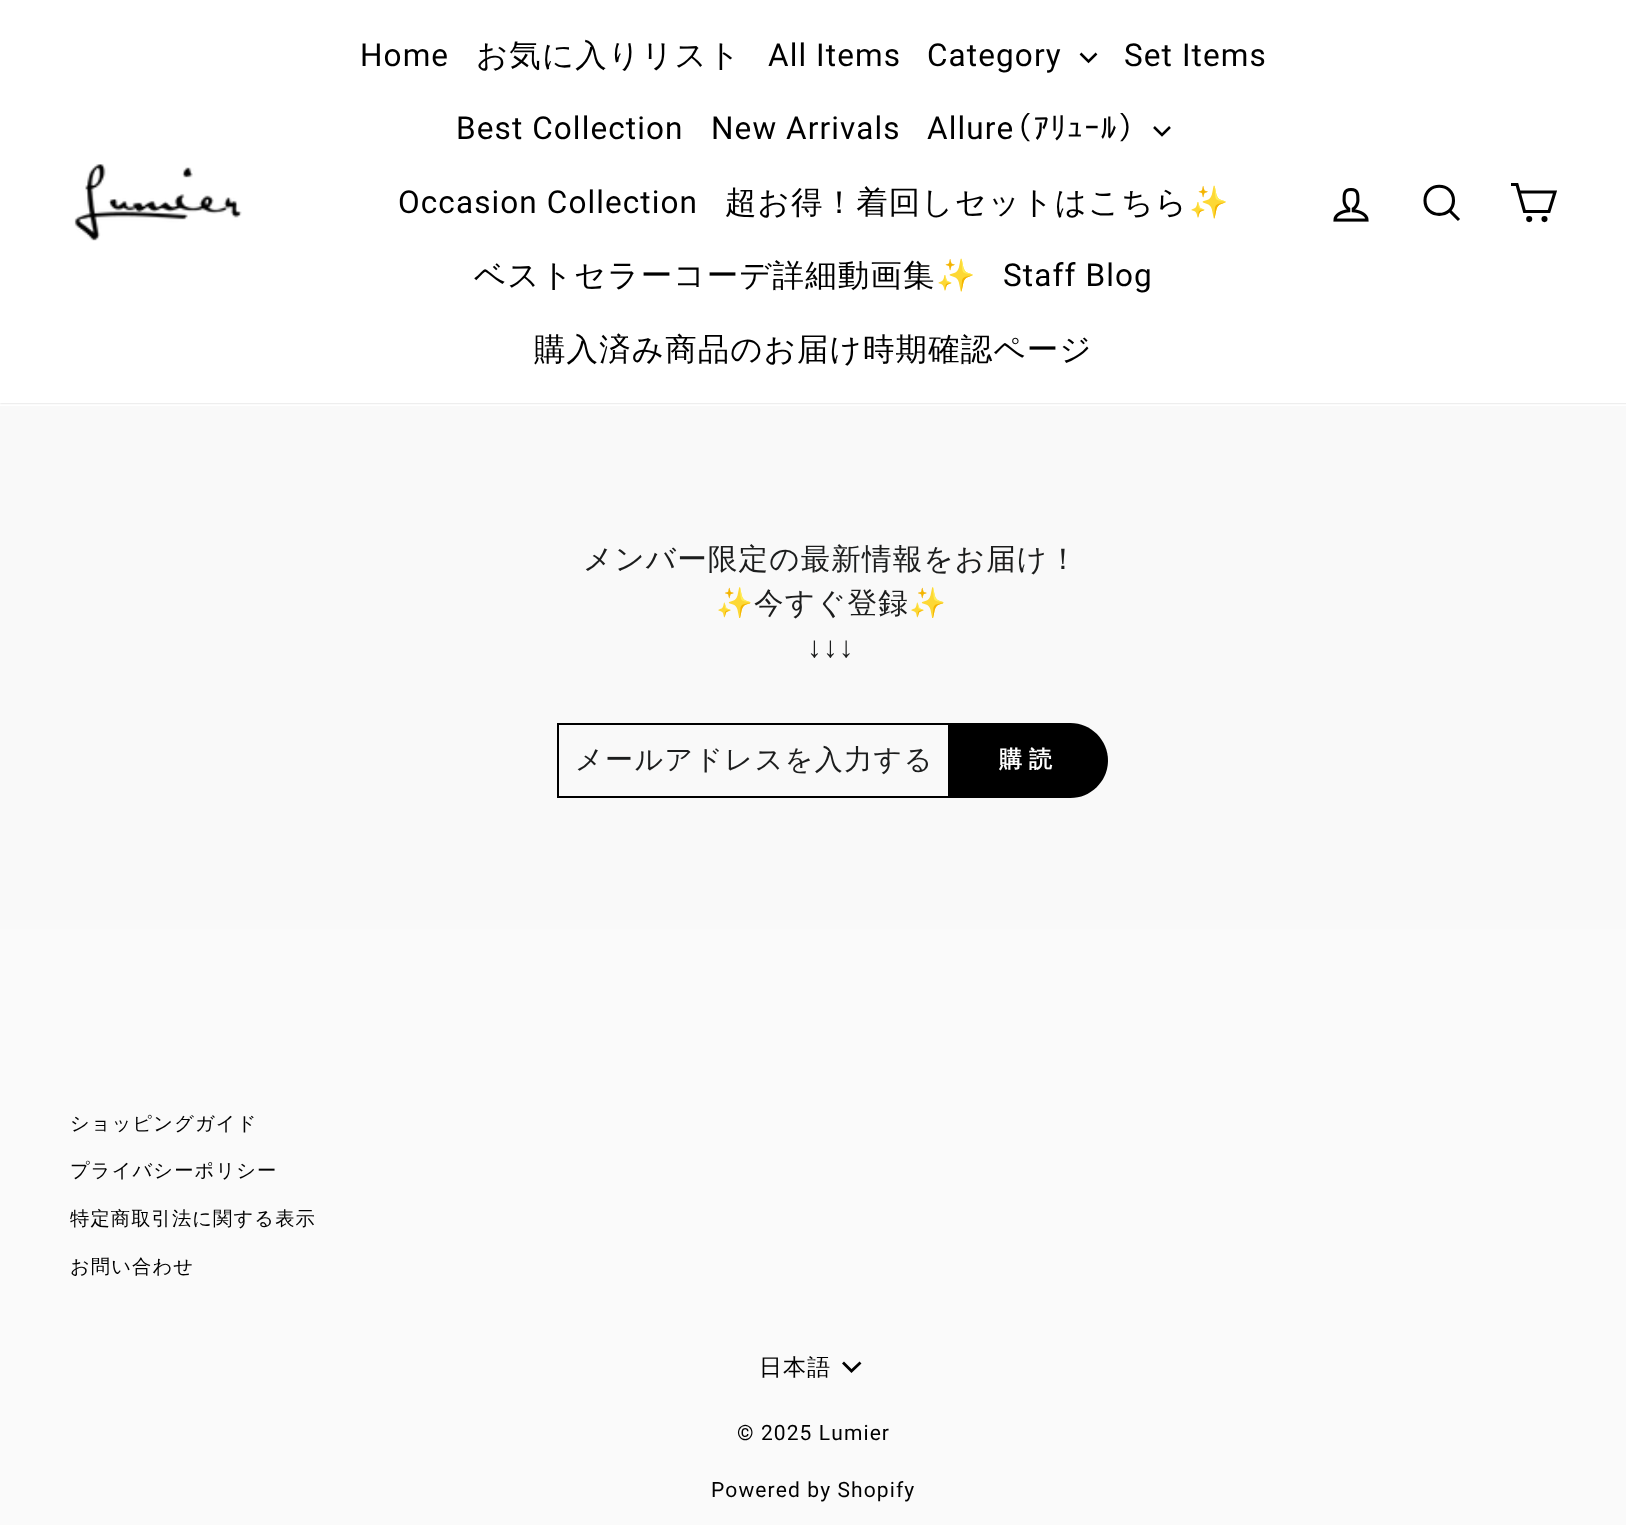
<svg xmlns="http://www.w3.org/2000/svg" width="1626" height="1525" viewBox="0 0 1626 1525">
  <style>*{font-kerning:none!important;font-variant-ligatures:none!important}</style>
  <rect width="100%" height="100%" fill="rgb(255,255,255)"/>
  <rect x="0" y="406" width="1626" height="523" fill="rgb(249,249,249)"/>
  <rect x="0" y="0" width="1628" height="403" fill="rgba(0,0,0,0.2)" filter="blur(1px)"/>
  <rect x="0" y="0" width="1626" height="403" fill="rgb(255,255,255)"/>
  <image x="74" y="164" width="168" height="77" href="pic1.png"/>
  <text x="360" y="66" font-family="Roboto" font-size="31.5" letter-spacing="1.1" fill="rgb(0,0,0)">Home</text>
  <text x="476" y="66" font-family="WenQuanYi Zen Hei" font-size="31.5" font-weight="500" letter-spacing="1.1" fill="rgb(0,0,0)">お気に入りリスト</text>
  <g font-family="Roboto" font-size="31.5" letter-spacing="1.1" fill="rgb(0,0,0)">
    <text x="768" y="66">All Items</text>
    <text x="927" y="66">Category</text>
  </g>
  <path d="M1080.5 53.5L1088.5 61.5L1096.5 53.5" fill="none" stroke="rgb(0,0,0)" stroke-width="2.5"/>
  <g font-family="Roboto" font-size="31.5" letter-spacing="1.1" fill="rgb(0,0,0)">
    <text x="1124" y="66">Set Items</text>
    <text x="456" y="139">Best Collection</text>
    <text x="711" y="139">New Arrivals</text>
    <text x="927" y="139">Allure</text>
  </g>
  <text x="1015" y="139" font-family="IPAPGothic" font-size="31.5" letter-spacing="1.1" fill="rgb(0,0,0)">（ｱﾘｭｰﾙ）</text>
  <path d="M1154 127L1162 135L1170 127" fill="none" stroke="rgb(0,0,0)" stroke-width="2.5"/>
  <text x="398" y="213" font-family="Roboto" font-size="31.5" letter-spacing="1.1" fill="rgb(0,0,0)">Occasion Collection</text>
  <text x="725" y="213" font-family="WenQuanYi Zen Hei" font-size="31.5" font-weight="500" letter-spacing="1.1" fill="rgb(0,0,0)">超お得！着回しセットはこちら</text>
  <text x="1189" y="213" font-family="Noto Color Emoji" font-size="31.5" letter-spacing="1.1" fill="rgb(0,0,0)">✨</text>
  <text x="474" y="286" font-family="WenQuanYi Zen Hei" font-size="31.5" font-weight="500" letter-spacing="1.1" fill="rgb(0,0,0)">ベストセラーコーデ詳細動画集</text>
  <text x="936" y="286" font-family="Noto Color Emoji" font-size="31.5" letter-spacing="1.1" fill="rgb(0,0,0)">✨</text>
  <text x="1003" y="286" font-family="Roboto" font-size="31.5" letter-spacing="1.1" fill="rgb(0,0,0)">Staff Blog</text>
  <text x="534" y="360" font-family="WenQuanYi Zen Hei" font-size="31.5" font-weight="500" letter-spacing="1.1" fill="rgb(0,0,0)">購入済み商品のお届け時期確認ページ</text>
  <image x="1333" y="188" width="36" height="34" href="pic2.png"/>
  <path d="M1453.5 200.5C1453.5 219 1425 219 1425 200.5C1425 181.5 1453.5 181.5 1453.5 200.5ZM1459 220L1449.5 210.5" fill="none" stroke="rgb(0,0,0)" stroke-width="3.1"/>
  <path d="M1519 192H1555L1549 211.5H1524.5L1517 184.5H1511" fill="none" stroke="rgb(0,0,0)" stroke-width="3.1"/>
  <circle cx="1529.2" cy="219.1" r="1.5" fill="none" stroke="rgb(0,0,0)" stroke-width="3.1"/>
  <circle cx="1544.5" cy="219.1" r="1.5" fill="none" stroke="rgb(0,0,0)" stroke-width="3.1"/>
  <text x="583" y="569" font-family="WenQuanYi Zen Hei" font-size="29.6" font-weight="500" letter-spacing="1.1" fill="rgb(28,29,29)">メンバー限定の最新情報をお届け！</text>
  <text x="716" y="613" font-family="Noto Color Emoji" font-size="29.6" letter-spacing="1.1" fill="rgb(28,29,29)">✨</text>
  <text x="754" y="613" font-family="WenQuanYi Zen Hei" font-size="29.6" font-weight="500" letter-spacing="1.1" fill="rgb(28,29,29)">今すぐ登録</text>
  <text x="909" y="613" font-family="Noto Color Emoji" font-size="29.6" letter-spacing="1.1" fill="rgb(28,29,29)">✨</text>
  <text x="807" y="657" font-family="Liberation Sans" font-size="29.6" letter-spacing="1.1" fill="rgb(28,29,29)">↓↓↓</text>
  <rect x="558" y="724" width="391" height="73" fill="none" stroke="rgb(0,0,0)" stroke-width="2"/>
  <text x="575" y="769" font-family="WenQuanYi Zen Hei" font-size="28" font-weight="500" letter-spacing="1.4" fill="rgb(28,29,29)">メールアドレスを入力する</text>
  <path d="M950 723H1070.5C1091 723 1108 740 1108 760.5C1108 781 1091 798 1070.5 798H950Z" fill="rgb(0,0,0)"/>
  <text x="999" y="767" font-family="WenQuanYi Zen Hei" font-size="23" font-weight="bold" letter-spacing="7" fill="rgb(255,255,255)">購読</text>
  <rect x="0" y="929" width="1626" height="596" fill="rgb(250,250,250)"/>
  <g font-family="WenQuanYi Zen Hei" font-size="19.3" font-weight="500" letter-spacing="1.1" fill="rgb(0,0,0)">
    <text x="70" y="1130">ショッピングガイド</text>
    <text x="70" y="1177">プライバシーポリシー</text>
    <text x="70" y="1225">特定商取引法に関する表示</text>
    <text x="70" y="1273">お問い合わせ</text>
  </g>
  <text x="759" y="1375" font-family="WenQuanYi Zen Hei" font-size="23" font-weight="500" letter-spacing="1.1" fill="rgb(0,0,0)">日本語</text>
  <path d="M843 1362.5L851.5 1371L860.5 1362.5" fill="none" stroke="rgb(0,0,0)" stroke-width="2.8"/>
  <g font-family="Roboto" font-size="21" letter-spacing="1.1" fill="rgb(0,0,0)">
    <text x="737" y="1440">© 2025 Lumier</text>
    <text x="711" y="1497">Powered by Shopify</text>
  </g>
</svg>
